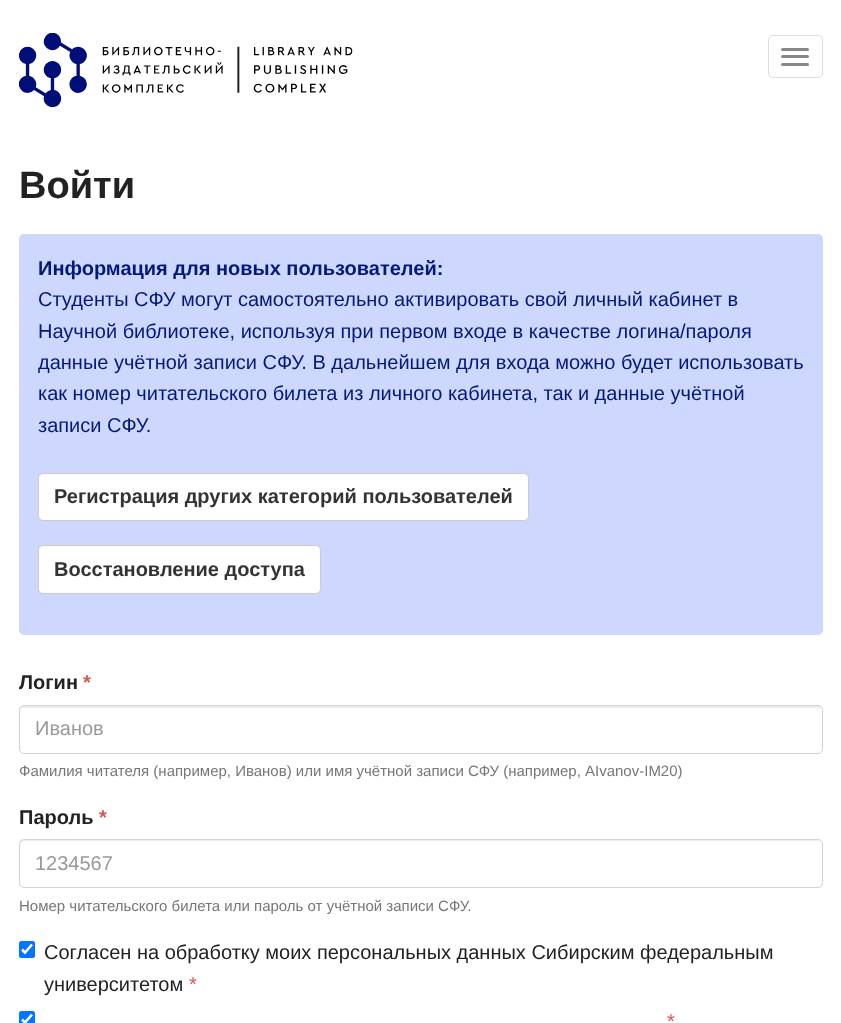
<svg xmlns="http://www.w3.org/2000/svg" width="841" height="1023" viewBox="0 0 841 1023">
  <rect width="100%" height="100%" fill="rgb(255,255,255)"/>
  <image x="19" y="33" width="334" height="75" href="pic1.png"/>
  <rect x="768.5" y="35.5" width="54" height="42" rx="4.5" fill="none" stroke="rgb(221,221,221)"/>
  <rect x="781" y="48" width="28" height="3" rx="1.5" fill="rgb(136,136,136)"/>
  <rect x="781" y="55" width="28" height="3" rx="1.5" fill="rgb(136,136,136)"/>
  <rect x="781" y="63" width="28" height="3" rx="1.5" fill="rgb(136,136,136)"/>
  <text x="19" y="198" font-family="Liberation Sans" font-size="38" font-weight="bold" fill="rgb(34,34,34)">Войти</text>
  <rect x="19" y="234" width="804" height="401" rx="5" fill="rgb(206,215,254)"/>
  <text x="38" y="275" font-family="Liberation Sans" font-size="20" font-weight="bold" fill="rgb(2,25,124)">Информация для новых пользователей:</text>
  <g font-family="Liberation Sans" font-size="20" fill="rgb(2,25,124)">
    <text>
      <tspan x="38" y="306">Студенты СФУ могут самостоятельно активировать свой личный кабинет в</tspan>
      <tspan x="38" y="338">Научной библиотеке, используя при первом входе в качестве логина/пароля</tspan>
      <tspan x="38" y="369">данные учётной записи СФУ. В дальнейшем для входа можно будет использовать</tspan>
      <tspan x="38" y="400">как номер читательского билета из личного кабинета, так и данные учётной</tspan>
      <tspan x="38" y="432">записи СФУ.</tspan>
    </text>
  </g>
  <rect x="38.5" y="473.5" width="490" height="47" rx="4.5" fill="rgb(255,255,255)" stroke="rgb(204,204,204)"/>
  <text x="54" y="503" font-family="Liberation Sans" font-size="20" font-weight="bold" fill="rgb(51,51,51)">Регистрация других категорий пользователей</text>
  <rect x="38.5" y="545.5" width="282" height="48" rx="4.5" fill="rgb(255,255,255)" stroke="rgb(204,204,204)"/>
  <text x="54" y="576" font-family="Liberation Sans" font-size="20" font-weight="bold" fill="rgb(51,51,51)">Восстановление доступа</text>
  <text x="19" y="689" font-family="Liberation Sans" font-size="20" font-weight="bold" fill="rgb(34,34,34)">Логин</text>
  <text x="83" y="689" font-family="Liberation Sans" font-size="20" font-weight="bold" fill="rgb(217,83,79)">*</text>
  <path d="M24 708H818C820 708 821 709 821 711C821 708 820 706 817 706H24C21 706 20 708 20 711C20 709 22 708 24 708Z" fill="rgb(236,236,236)"/>
  <rect x="19.5" y="705.5" width="803" height="48" rx="4.5" fill="none" stroke="rgba(34,34,34,0.2)"/>
  <text x="35" y="735" font-family="Liberation Sans" font-size="20" fill="rgb(153,153,153)">Иванов</text>
  <text x="19" y="776" font-family="Liberation Sans" font-size="15" fill="rgb(119,119,119)">Фамилия читателя (например, Иванов) или имя учётной записи СФУ (например, AIvanov-IM20)</text>
  <text x="19" y="824" font-family="Liberation Sans" font-size="20" font-weight="bold" fill="rgb(34,34,34)">Пароль</text>
  <text x="99" y="824" font-family="Liberation Sans" font-size="20" font-weight="bold" fill="rgb(217,83,79)">*</text>
  <path d="M24 841H818C820 841 821 843 821 845C821 842 820 840 817 840H24C21 840 20 842 20 845C20 843 22 841 24 841Z" fill="rgb(236,236,236)"/>
  <rect x="19.5" y="839.5" width="803" height="48" rx="4.5" fill="none" stroke="rgba(34,34,34,0.2)"/>
  <text x="35" y="870" font-family="Liberation Sans" font-size="20" fill="rgb(153,153,153)">1234567</text>
  <text x="19" y="911" font-family="Liberation Sans" font-size="15" fill="rgb(119,119,119)">Номер читательского билета или пароль от учётной записи СФУ.</text>
  <rect x="19" y="941" width="16" height="17" rx="2.5" fill="rgb(0,117,255)"/>
  <path d="M22 949.5L25 952.5L32 944.5" fill="none" stroke="rgb(255,255,255)" stroke-width="2.6"/>
  <g font-family="Liberation Sans" font-size="20" fill="rgb(34,34,34)">
    <text>
      <tspan x="44" y="959">Согласен на обработку моих персональных данных Сибирским федеральным</tspan>
      <tspan x="44" y="991">университетом</tspan>
    </text>
  </g>
  <text x="189" y="991" font-family="Liberation Sans" font-size="20" fill="rgb(217,83,79)">*</text>
  <rect x="19" y="1011" width="16" height="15" rx="2.5" fill="rgb(0,117,255)"/>
  <path d="M22 1019.5L25 1022.5L32 1014.5" fill="none" stroke="rgb(255,255,255)" stroke-width="2.6"/>
  <text x="667" y="1028" font-family="Liberation Sans" font-size="20" fill="rgb(217,83,79)">*</text>
</svg>
